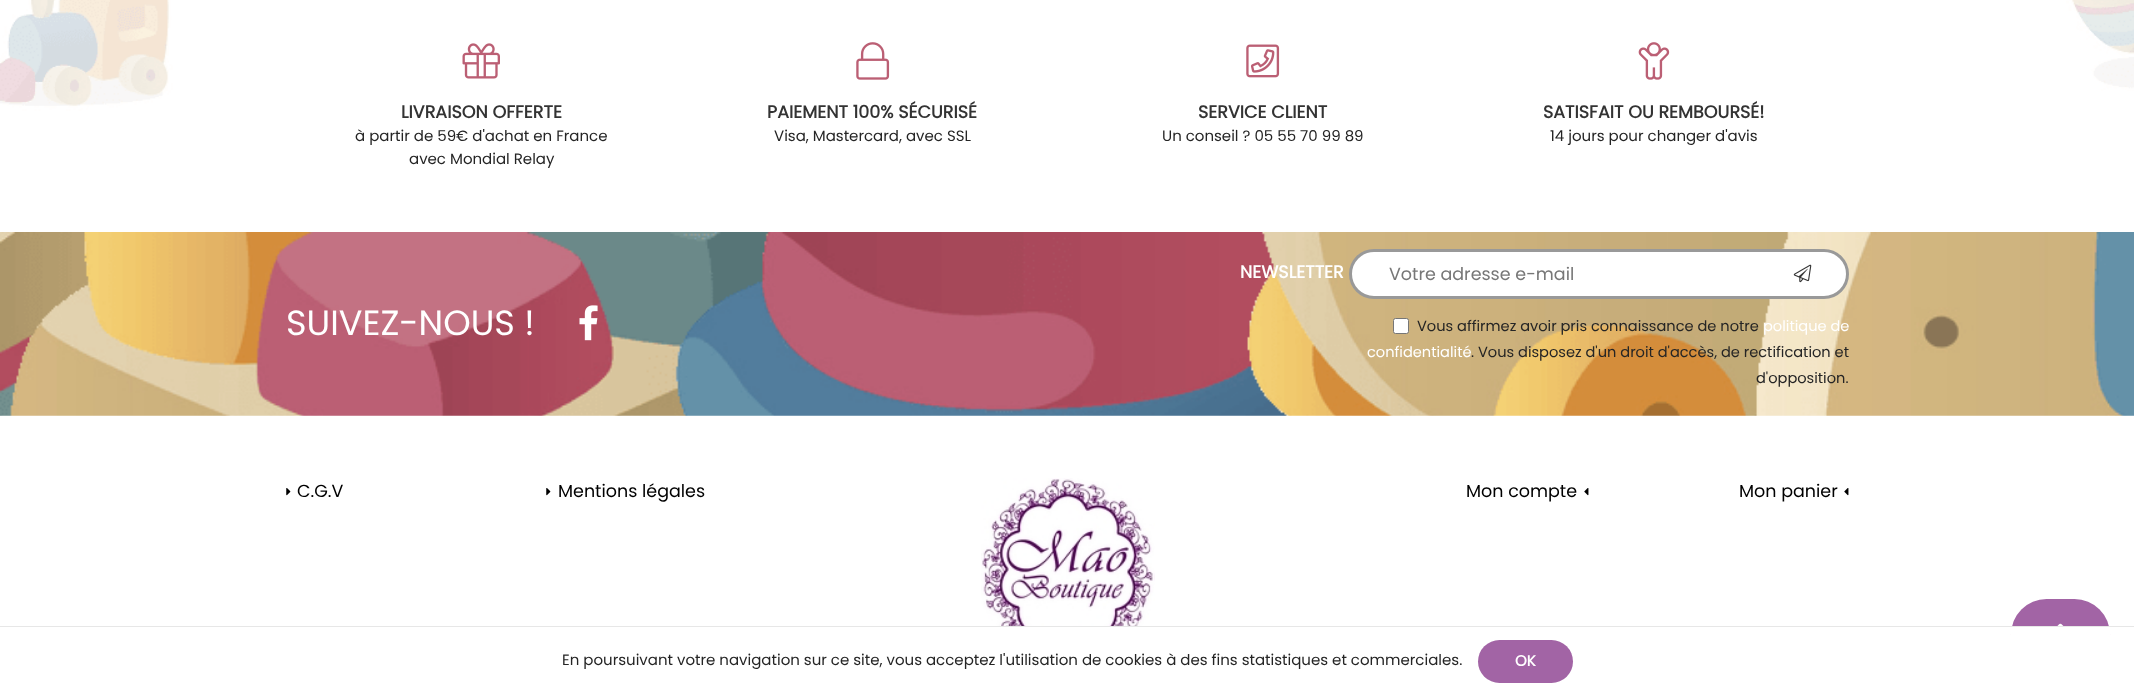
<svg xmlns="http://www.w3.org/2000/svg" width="2134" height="695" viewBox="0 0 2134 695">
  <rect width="100%" height="100%" fill="rgb(255,255,255)"/>
  <image x="0" y="0" width="2134" height="232" href="pic1.png"/>
  <image x="462" y="43" width="38" height="36" href="pic2.png"/>
  <text x="401" y="118" font-family="Poppins" font-size="17.5" font-weight="bold" fill="rgb(51,51,51)">LIVRAISON OFFERTE</text>
  <g font-family="Poppins" font-size="15" fill="rgb(37,37,37)">
    <text x="355" y="141">à partir de 59€ d'achat en France</text>
    <text x="409" y="164">avec Mondial Relay</text>
  </g>
  <image x="856" y="42" width="34" height="38" href="pic3.png"/>
  <text x="767" y="118" font-family="Poppins" font-size="17.5" font-weight="bold" fill="rgb(51,51,51)">PAIEMENT 100% SÉCURISÉ</text>
  <text x="774" y="141" font-family="Poppins" font-size="15" fill="rgb(37,37,37)">Visa, Mastercard, avec SSL</text>
  <image x="1246" y="44" width="34" height="34" href="pic4.png"/>
  <text x="1198" y="118" font-family="Poppins" font-size="17.5" font-weight="bold" fill="rgb(51,51,51)">SERVICE CLIENT</text>
  <text x="1162" y="141" font-family="Poppins" font-size="15" fill="rgb(37,37,37)">Un conseil ? 05 55 70 99 89</text>
  <image x="1638" y="42" width="32" height="38" href="pic5.png"/>
  <text x="1543" y="118" font-family="Poppins" font-size="17.5" font-weight="bold" fill="rgb(51,51,51)">SATISFAIT OU REMBOURSÉ!</text>
  <text x="1550" y="141" font-family="Poppins" font-size="15" fill="rgb(37,37,37)">14 jours pour changer d'avis</text>
  <rect x="2011" y="599" width="99" height="71" rx="35.5" fill="rgb(162,100,165)"/>
  <image x="2057" y="623" width="7" height="3" href="pic6.png"/>
  <image x="0" y="232" width="2134" height="184" href="pic7.png"/>
  <text x="286" y="335" font-family="Poppins" font-size="35" fill="rgb(255,255,255)">SUIVEZ-NOUS !</text>
  <image x="579" y="305" width="19" height="36" href="pic8.png"/>
  <text x="1240" y="278" font-family="Poppins" font-size="17.5" font-weight="bold" fill="rgb(255,255,255)">NEWSLETTER</text>
  <rect x="1350.5" y="250.5" width="497" height="47" rx="23.5" fill="rgb(255,255,255)" stroke="rgb(153,153,153)" stroke-width="3"/>
  <text x="1389" y="280" font-family="Poppins" font-size="17.5" fill="rgb(119,119,119)">Votre adresse e-mail</text>
  <image x="1793" y="264" width="19" height="19" href="pic9.png"/>
  <rect x="1393.5" y="318.5" width="15" height="15" rx="2" fill="rgb(255,255,255)" stroke="rgb(118,118,118)"/>
  <text x="1417" y="331" font-family="Poppins" font-size="14.6" fill="rgb(37,37,37)">Vous affirmez avoir pris connaissance de notre</text>
  <g font-family="Poppins" font-size="14.6" fill="rgb(255,255,255)">
    <text x="1763" y="331">politique de</text>
    <text x="1367" y="357">confidentialité</text>
  </g>
  <g font-family="Poppins" font-size="14.6" fill="rgb(37,37,37)">
    <text x="1471" y="357">. Vous disposez d'un droit d'accès, de rectification et</text>
    <text x="1756" y="383">d'opposition.</text>
  </g>
  <image x="286" y="488" width="5" height="8" href="pic10.png"/>
  <text x="297" y="497" font-family="Poppins" font-size="17.5" fill="rgb(0,0,0)">C.G.V</text>
  <image x="546" y="488" width="5" height="8" href="pic10.png"/>
  <text x="558" y="497" font-family="Poppins" font-size="17.5" fill="rgb(0,0,0)">Mentions légales</text>
  <image x="981" y="478" width="174" height="148" href="pic11.png"/>
  <text x="1466" y="497" font-family="Poppins" font-size="17.5" fill="rgb(0,0,0)">Mon compte</text>
  <image x="1584" y="488" width="5" height="8" href="pic12.png"/>
  <text x="1739" y="497" font-family="Poppins" font-size="17.5" fill="rgb(0,0,0)">Mon panier</text>
  <image x="1844" y="488" width="5" height="8" href="pic12.png"/>
  <rect x="2011" y="627" width="99" height="43" fill="rgb(255,255,255)"/>
  <rect x="0" y="626" width="2134" height="1" fill="rgb(231,231,231)"/>
  <text x="562" y="665" font-family="Poppins" font-size="15" fill="rgb(37,37,37)">En poursuivant votre navigation sur ce site, vous acceptez l'utilisation de cookies à des fins statistiques et commerciales.</text>
  <rect x="1478" y="640" width="95" height="43" rx="21.5" fill="rgb(162,100,165)"/>
  <text x="1515" y="666" font-family="Poppins" font-size="15" font-weight="bold" fill="rgb(255,255,255)">OK</text>
</svg>
